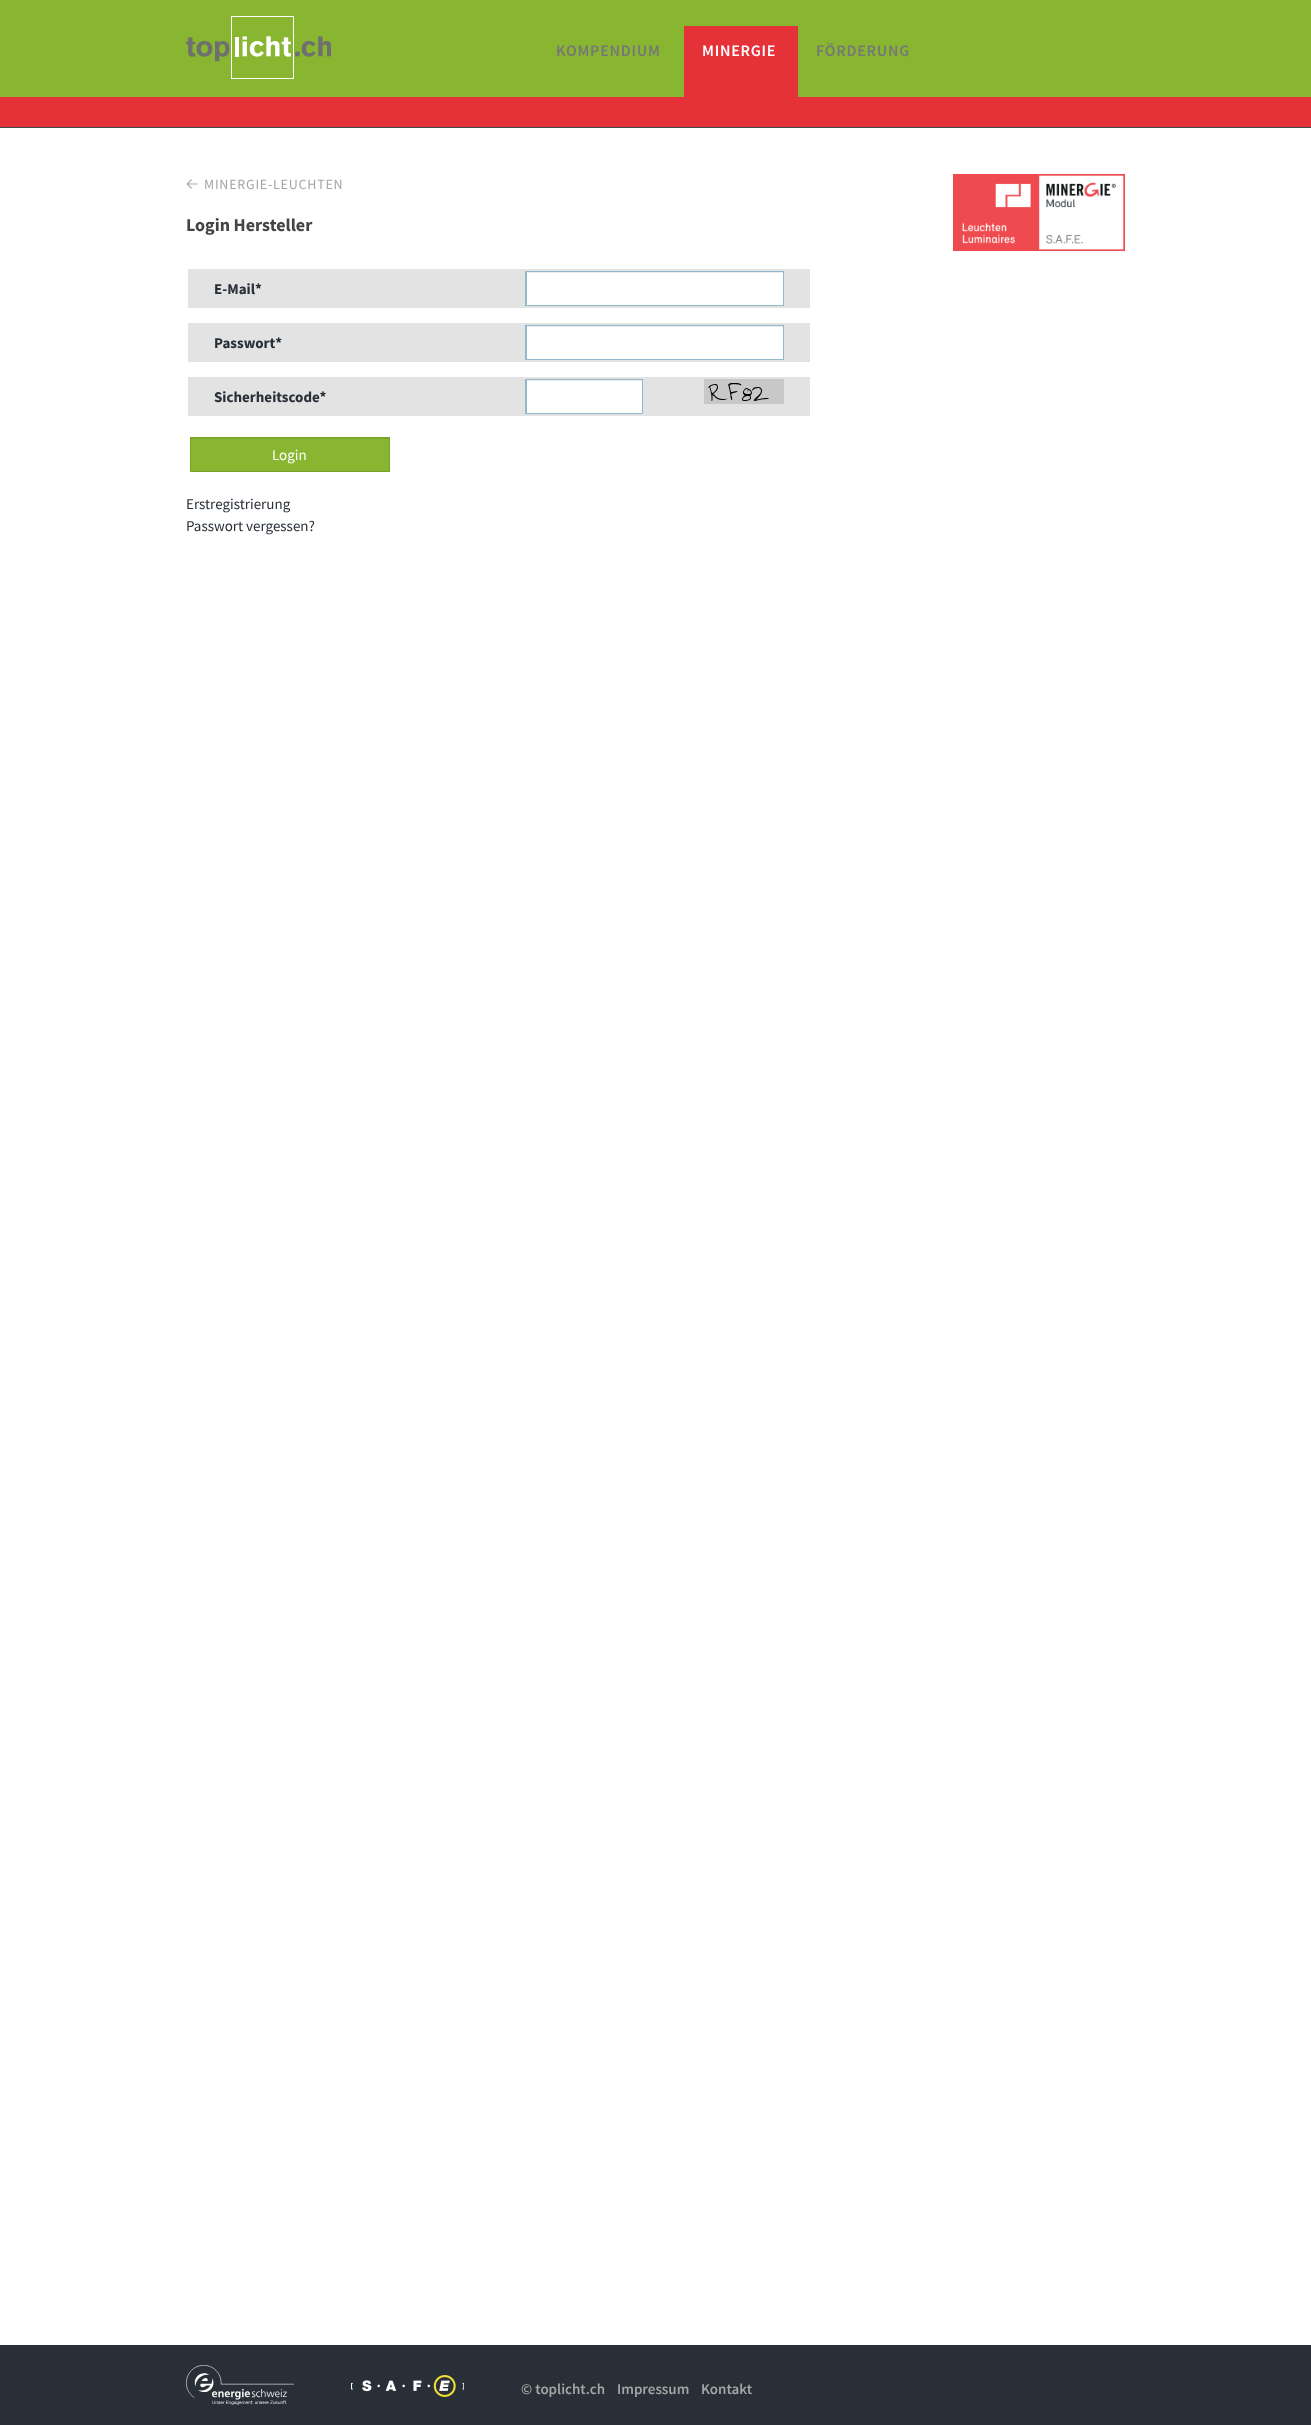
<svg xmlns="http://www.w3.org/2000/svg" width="1311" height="2425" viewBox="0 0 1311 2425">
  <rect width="100%" height="100%" fill="rgb(255,255,255)"/>
  <rect x="0" y="0" width="1311" height="97" fill="rgb(136,182,48)"/>
  <image x="186" y="16" width="145" height="63" href="pic1.png"/>
  <text x="556" y="56" font-family="Source Sans Pro" font-size="16" font-weight="600" letter-spacing="0.75" fill="rgb(119,119,119)">KOMPENDIUM</text>
  <rect x="0" y="98" width="1311" height="30" fill="rgb(61,72,85)" filter="blur(0.5px)"/>
  <rect x="684" y="26" width="114" height="71" fill="rgb(229,49,56)"/>
  <text x="702" y="56" font-family="Source Sans Pro" font-size="16" font-weight="600" letter-spacing="0.75" fill="rgb(255,255,255)">MINERGIE</text>
  <text x="816" y="56" font-family="Source Sans Pro" font-size="16" font-weight="600" letter-spacing="0.75" fill="rgb(119,119,119)">FÖRDERUNG</text>
  <rect x="0" y="97" width="1311" height="30" fill="rgb(229,49,56)"/>
  <image x="953" y="174" width="172" height="77" href="pic2.png"/>
  <image x="186" y="179" width="12" height="10" href="pic3.png"/>
  <text x="204" y="189" font-family="Source Sans Pro" font-size="14" letter-spacing="0.75" fill="rgb(165,165,165)">MINERGIE-LEUCHTEN</text>
  <text x="186" y="231" font-family="Source Sans Pro" font-size="18" font-weight="bold" fill="rgb(68,68,68)">Login Hersteller</text>
  <rect x="188" y="269" width="622" height="39" fill="rgb(227,227,227)"/>
  <text x="214" y="294" font-family="Source Sans Pro" font-size="15" font-weight="bold" fill="rgb(40,47,55)">E-Mail*</text>
  <rect x="527" y="273" width="256" height="32" fill="rgb(255,255,255)"/>
  <rect x="527" y="272" width="256" height="1" fill="rgb(236,236,236)"/>
  <rect x="525" y="271" width="259" height="1" fill="rgb(146,184,203)"/>
  <rect x="783" y="271" width="1" height="35" fill="rgb(146,184,203)"/>
  <rect x="525" y="305" width="259" height="1" fill="rgb(146,184,203)"/>
  <rect x="525" y="271" width="2" height="35" fill="rgb(146,184,203)"/>
  <rect x="188" y="323" width="622" height="39" fill="rgb(227,227,227)"/>
  <text x="214" y="348" font-family="Source Sans Pro" font-size="15" font-weight="bold" fill="rgb(40,47,55)">Passwort*</text>
  <rect x="527" y="327" width="256" height="32" fill="rgb(255,255,255)"/>
  <rect x="527" y="326" width="256" height="1" fill="rgb(236,236,236)"/>
  <rect x="525" y="325" width="259" height="1" fill="rgb(146,184,203)"/>
  <rect x="783" y="325" width="1" height="35" fill="rgb(146,184,203)"/>
  <rect x="525" y="359" width="259" height="1" fill="rgb(146,184,203)"/>
  <rect x="525" y="325" width="2" height="35" fill="rgb(146,184,203)"/>
  <rect x="188" y="377" width="622" height="39" fill="rgb(227,227,227)"/>
  <text x="214" y="402" font-family="Source Sans Pro" font-size="15" font-weight="bold" fill="rgb(40,47,55)">Sicherheitscode*</text>
  <rect x="527" y="381" width="115" height="32" fill="rgb(255,255,255)"/>
  <rect x="527" y="380" width="115" height="1" fill="rgb(236,236,236)"/>
  <rect x="525" y="379" width="118" height="1" fill="rgb(146,184,203)"/>
  <rect x="642" y="379" width="1" height="35" fill="rgb(146,184,203)"/>
  <rect x="525" y="413" width="118" height="1" fill="rgb(146,184,203)"/>
  <rect x="525" y="379" width="2" height="35" fill="rgb(146,184,203)"/>
  <image x="704" y="379" width="80" height="25" href="pic4.png"/>
  <rect x="191" y="439" width="198" height="32" fill="rgb(136,182,48)"/>
  <rect x="191" y="438" width="198" height="1" fill="rgb(126,168,44)"/>
  <rect x="190.5" y="437.5" width="199" height="34" fill="none" stroke="rgb(121,162,43)"/>
  <text x="272" y="460" font-family="Source Sans Pro" font-size="15" fill="rgb(255,255,255)">Login</text>
  <g font-family="Source Sans Pro" font-size="15" fill="rgb(40,47,55)">
    <text>
      <tspan x="186" y="509">Erstregistrierung</tspan>
      <tspan x="186" y="531">Passwort vergessen?</tspan>
    </text>
  </g>
  <rect x="0" y="2345" width="1311" height="80" fill="rgb(40,47,55)"/>
  <image x="186" y="2365" width="108" height="40" href="pic5.png"/>
  <image x="351" y="2375" width="113" height="22" href="pic6.png"/>
  <g font-family="Source Sans Pro" font-size="15" font-weight="600" fill="rgb(165,165,165)">
    <text x="521" y="2394">© toplicht.ch</text>
    <text x="617" y="2394">Impressum</text>
    <text x="701" y="2394">Kontakt</text>
  </g>
</svg>
